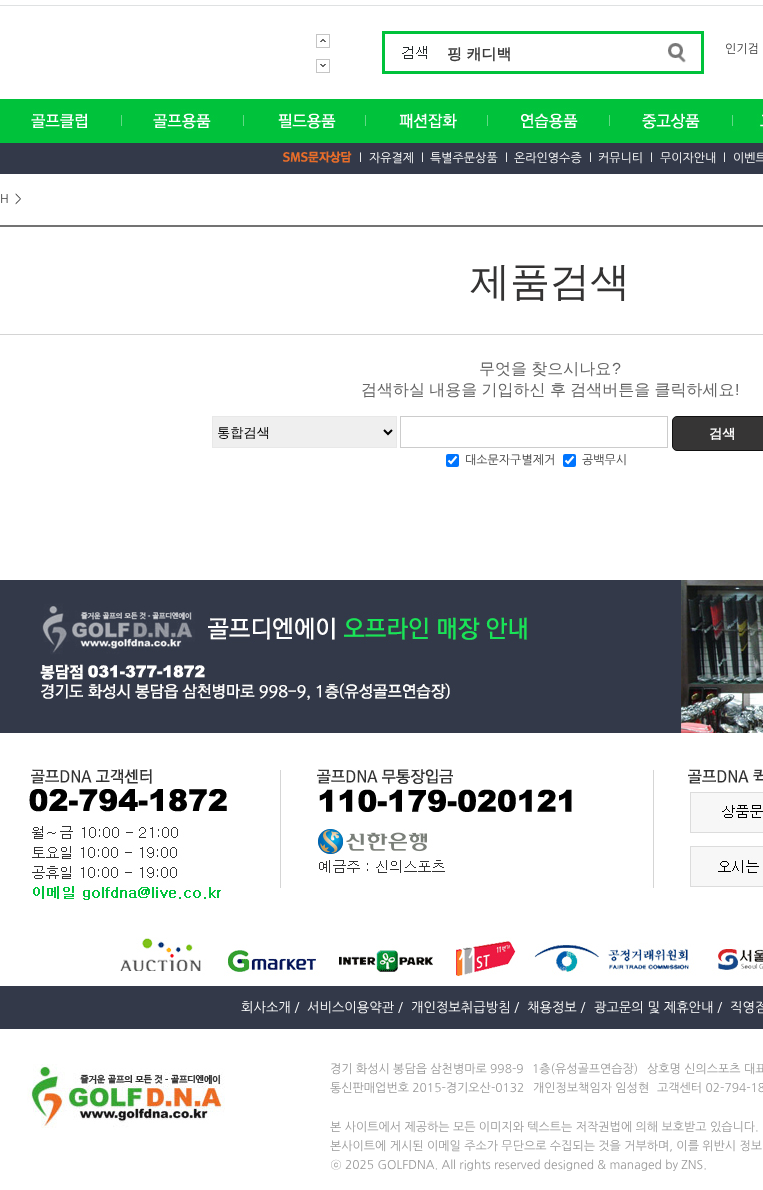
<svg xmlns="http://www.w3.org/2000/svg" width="763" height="1190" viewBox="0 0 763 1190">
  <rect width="100%" height="100%" fill="rgb(255,255,255)"/>
  <rect x="0" y="5" width="763" height="1" fill="rgb(223,225,226)"/>
  <image x="316" y="34" width="14" height="14" href="pic1.png"/>
  <image x="316" y="59" width="14" height="14" href="pic2.png"/>
  <image x="382" y="31" width="322" height="43" href="pic3.png"/>
  <image x="382" y="34" width="45" height="37" href="pic4.png"/>
  <text x="447" y="59" font-family="WenQuanYi Zen Hei" font-size="15" font-weight="bold" fill="rgb(60,60,60)">핑 캐디백</text>
  <image x="668" y="34" width="36" height="37" href="pic5.png"/>
  <text x="725" y="53" font-family="NanumGothic" font-size="12" fill="rgb(60,60,60)">인기검</text>
  <image x="0" y="99" width="763" height="75" href="pic6.png"/>
  <image x="31" y="109" width="91" height="21" href="pic7.png"/>
  <image x="153" y="109" width="91" height="22" href="pic8.png"/>
  <image x="278" y="113" width="88" height="17" href="pic9.png"/>
  <image x="399" y="110" width="89" height="19" href="pic10.png"/>
  <image x="521" y="108" width="89" height="22" href="pic11.png"/>
  <image x="642" y="109" width="58" height="20" href="pic12.png"/>
  <image x="732" y="114" width="31" height="17" href="pic13.png"/>
  <image x="283" y="151" width="69" height="12" href="pic14.png"/>
  <g font-family="NanumGothic" font-size="12" fill="rgb(255,255,255)">
    <text x="359" y="162">l</text>
    <text x="369" y="162">자유결제</text>
    <text x="421" y="162">l</text>
    <text x="430" y="162">특별주문상품</text>
    <text x="505" y="162">l</text>
    <text x="514" y="162">온라인영수증</text>
    <text x="589" y="162">l</text>
    <text x="598" y="162">커뮤니티</text>
    <text x="650" y="162">l</text>
    <text x="660" y="162">무이자안내</text>
    <text x="723" y="162">l</text>
    <text x="733" y="162">이벤트</text>
  </g>
  <g font-family="NanumGothic" font-size="12" fill="rgb(60,60,60)">
    <text x="0" y="203">H</text>
    <text x="15" y="203">&gt;</text>
  </g>
  <rect x="0" y="225" width="763" height="2" fill="rgb(115,115,115)"/>
  <text x="470" y="295" font-family="WenQuanYi Zen Hei" font-size="40" font-weight="500" fill="rgb(52,51,51)">제품검색</text>
  <rect x="0" y="334" width="763" height="1" fill="rgb(212,212,212)"/>
  <text x="479" y="374" word-spacing="-0.5" font-family="WenQuanYi Zen Hei" font-size="16" font-weight="500" fill="rgb(102,102,102)">무엇을 찾으시나요</text>
  <text x="612" y="374" font-family="Liberation Sans" font-size="16" fill="rgb(102,102,102)">?</text>
  <text x="361" y="395" word-spacing="-0.5" font-family="WenQuanYi Zen Hei" font-size="16" font-weight="500" fill="rgb(102,102,102)">검색하실 내용을 기입하신 후 검색버튼을 클릭하세요</text>
  <text x="735" y="395" font-family="Liberation Sans" font-size="16" fill="rgb(102,102,102)">!</text>
  <rect x="212.5" y="416.5" width="184" height="31" fill="rgb(239,239,239)" stroke="rgb(232,232,232)"/>
  <path d="M384 430L388 434L392 430" fill="none" stroke="rgb(0,0,0)" stroke-width="2"/>
  <text x="217" y="437" font-family="WenQuanYi Zen Hei" font-size="13.25" font-weight="500" fill="rgb(0,0,0)">통합검색</text>
  <rect x="672.5" y="416.5" width="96" height="34" rx="4.5" fill="rgb(54,53,53)" stroke="rgb(17,17,17)"/>
  <text x="709" y="438" font-family="WenQuanYi Zen Hei" font-size="13.25" font-weight="bold" fill="rgb(255,255,255)">검색</text>
  <rect x="400.5" y="416.5" width="267" height="31" fill="none" stroke="rgb(204,204,204)"/>
  <rect x="446" y="454" width="13" height="13" rx="2" fill="rgb(0,117,255)"/>
  <path d="M448.5 460.5L451 463L456.5 456.5" fill="none" stroke="rgb(255,255,255)" stroke-width="2.1"/>
  <text x="465" y="464" font-family="NanumGothic" font-size="12" fill="rgb(60,60,60)">대소문자구별제거</text>
  <rect x="563" y="454" width="13" height="13" rx="2" fill="rgb(0,117,255)"/>
  <path d="M565.5 460.5L568 463L573.5 456.5" fill="none" stroke="rgb(255,255,255)" stroke-width="2.1"/>
  <text x="582" y="464" font-family="NanumGothic" font-size="12" fill="rgb(60,60,60)">공백무시</text>
  <rect x="0" y="580" width="40" height="153" fill="rgb(51,57,73)"/>
  <image x="40" y="580" width="723" height="153" href="pic15.png"/>
  <image x="29" y="769" width="252" height="131" href="pic16.png"/>
  <image x="317" y="769" width="337" height="119" href="pic17.png"/>
  <image x="688" y="769" width="75" height="15" href="pic18.png"/>
  <image x="690" y="792" width="73" height="41" href="pic19.png"/>
  <image x="690" y="846" width="73" height="41" href="pic20.png"/>
  <image x="120" y="937" width="643" height="39" href="pic21.png"/>
  <rect x="0" y="986" width="763" height="43" fill="rgb(51,57,73)"/>
  <g font-family="NanumGothic" font-size="13.25" fill="rgb(255,255,255)">
    <text x="241" y="1012">회사소개 /</text>
    <text x="307" y="1012">서비스이용약관 /</text>
    <text x="411" y="1012">개인정보취급방침 /</text>
    <text x="527" y="1012">채용정보 /</text>
    <text x="594" y="1012">광고문의 및 제휴안내 /</text>
    <text x="730" y="1012">직영점</text>
  </g>
  <image x="27" y="1064" width="198" height="66" href="pic22.png"/>
  <g font-family="NanumGothic" font-size="12" fill="rgb(153,153,153)">
    <text x="330" y="1073">경기 화성시 봉담읍 삼천병마로 998-9</text>
    <text x="532" y="1073">1층(유성골프연습장)</text>
    <text x="647" y="1073">상호명 신의스포츠 대표</text>
    <text x="330" y="1092">통신판매업번호 2015-경기오산-0132</text>
    <text x="533" y="1092">개인정보책임자 임성현</text>
    <text x="657" y="1092">고객센터 02-794-18</text>
    <text>
      <tspan x="330" y="1131">본 사이트에서 제공하는 모든 이미지와 텍스트는 저작권법에 의해 보호받고 있습니다.</tspan>
      <tspan x="330" y="1150">본사이트에 게시된 이메일 주소가 무단으로 수집되는 것을 거부하며, 이를 위반시 정보</tspan>
    </text>
  </g>
  <text x="330" y="1169" font-family="Dotum" font-size="12" fill="rgb(153,153,153)">ⓒ</text>
  <text x="345" y="1169" font-family="NanumGothic" font-size="12" fill="rgb(153,153,153)">2025 GOLFDNA. All rights reserved designed &amp; managed by ZNS.</text>
</svg>
